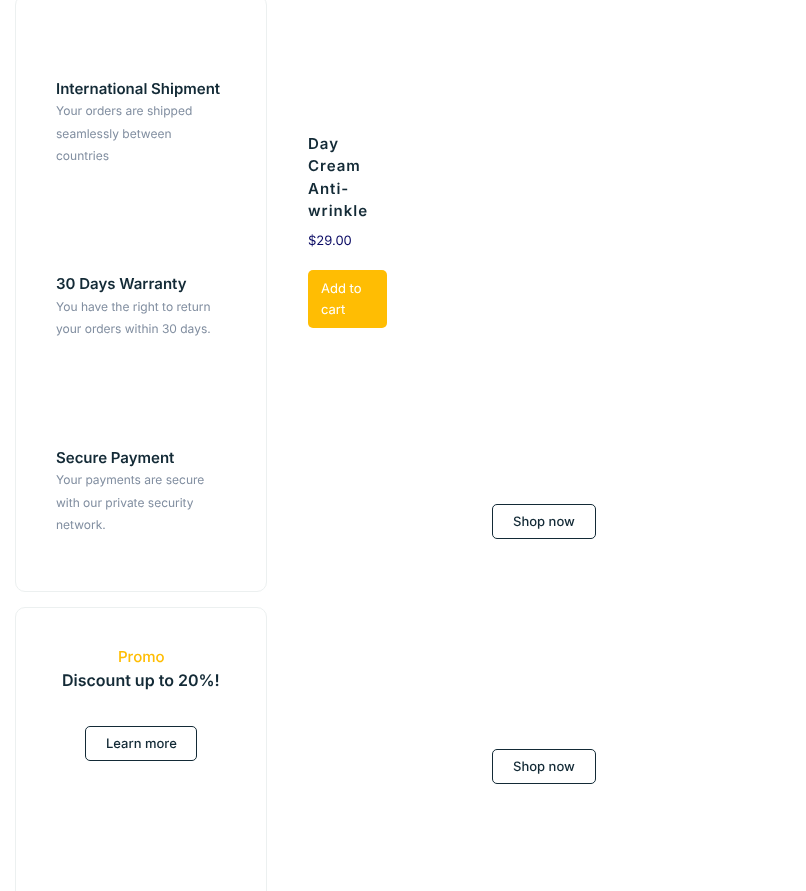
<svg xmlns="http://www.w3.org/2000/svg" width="806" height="891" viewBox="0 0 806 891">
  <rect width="100%" height="100%" fill="rgb(255,255,255)"/>
  <rect x="15.5" y="-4.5" width="251" height="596" rx="9.5" fill="none" stroke="rgb(236,240,240)"/>
  <text x="56" y="94" font-family="Inter" font-size="15" font-weight="600" fill="rgb(19,42,54)">International Shipment</text>
  <g font-family="Inter" font-size="12" fill="rgb(129,142,160)">
    <text>
      <tspan x="56" y="115">Your orders are shipped</tspan>
      <tspan x="56" y="138">seamlessly between</tspan>
      <tspan x="56" y="160">countries</tspan>
    </text>
  </g>
  <text x="56" y="289" font-family="Inter" font-size="15" font-weight="600" fill="rgb(19,42,54)">30 Days Warranty</text>
  <g font-family="Inter" font-size="12" fill="rgb(129,142,160)">
    <text>
      <tspan x="56" y="311">You have the right to return</tspan>
      <tspan x="56" y="333">your orders within 30 days.</tspan>
    </text>
  </g>
  <text x="56" y="463" font-family="Inter" font-size="15" font-weight="600" fill="rgb(19,42,54)">Secure Payment</text>
  <g font-family="Inter" font-size="12" fill="rgb(129,142,160)">
    <text>
      <tspan x="56" y="484">Your payments are secure</tspan>
      <tspan x="56" y="507">with our private security</tspan>
      <tspan x="56" y="529">network.</tspan>
    </text>
  </g>
  <rect x="15.5" y="607.5" width="251" height="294" rx="9.5" fill="none" stroke="rgb(236,240,240)"/>
  <text x="118" y="662" font-family="Inter" font-size="15" font-weight="500" fill="rgb(255,189,3)">Promo</text>
  <text x="62" y="686" font-family="Inter" font-size="16" font-weight="600" fill="rgb(19,42,54)">Discount up to 20%!</text>
  <rect x="85.5" y="726.5" width="111" height="34" rx="4.5" fill="none" stroke="rgb(19,42,54)"/>
  <text x="106" y="748" font-family="Inter" font-size="13" font-weight="500" fill="rgb(19,42,54)">Learn more</text>
  <g font-family="Inter" font-size="15" font-weight="600" letter-spacing="1" fill="rgb(19,42,54)">
    <text>
      <tspan x="308" y="149">Day</tspan>
      <tspan x="308" y="171">Cream</tspan>
      <tspan x="308" y="194">Anti-</tspan>
      <tspan x="308" y="216">wrinkle</tspan>
    </text>
  </g>
  <text x="308" y="245" font-family="Inter" font-size="13" fill="rgb(11,11,100)">$29.00</text>
  <rect x="308" y="270" width="79" height="58" rx="5" fill="rgb(255,189,3)"/>
  <g font-family="Inter" font-size="13" fill="rgb(255,255,255)">
    <text>
      <tspan x="321" y="293">Add to</tspan>
      <tspan x="321" y="314">cart</tspan>
    </text>
  </g>
  <rect x="492.5" y="504.5" width="103" height="34" rx="4.5" fill="none" stroke="rgb(19,42,54)"/>
  <text x="513" y="526" font-family="Inter" font-size="13" font-weight="500" fill="rgb(19,42,54)">Shop now</text>
  <rect x="492.5" y="749.5" width="103" height="34" rx="4.5" fill="none" stroke="rgb(19,42,54)"/>
  <text x="513" y="771" font-family="Inter" font-size="13" font-weight="500" fill="rgb(19,42,54)">Shop now</text>
</svg>
